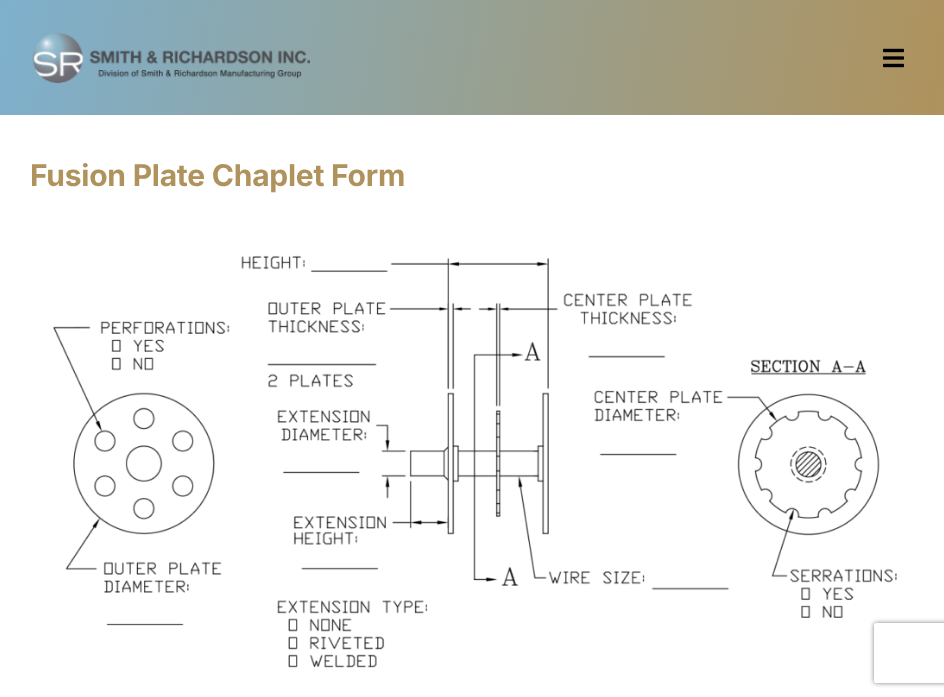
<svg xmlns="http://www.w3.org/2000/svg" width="944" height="697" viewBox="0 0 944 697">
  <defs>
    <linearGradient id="g1" gradientUnits="userSpaceOnUse" x1="940" y1="140" x2="4.4" y2="-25"><stop offset="0" stop-color="rgb(175,146,92)"/><stop offset="1" stop-color="rgb(126,176,205)"/></linearGradient>
    <clipPath id="clip1"><path d="M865 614H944V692H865ZM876 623H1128C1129 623 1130 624 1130 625V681C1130 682 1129 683 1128 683H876C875 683 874 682 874 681V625C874 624 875 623 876 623Z" clip-rule="evenodd"/></clipPath>
  </defs>
  <rect width="100%" height="100%" fill="rgb(255,255,255)"/>
  <rect x="0" y="0" width="944" height="115" fill="url(#g1)"/>
  <image x="32" y="33" width="278" height="51" href="pic1.png"/>
  <image x="883" y="48" width="21" height="20" href="pic2.png"/>
  <text x="30" y="186" font-family="Inter" font-size="30" font-weight="bold" letter-spacing="-0.25" fill="rgb(175,146,92)">Fusion Plate Chaplet Form</text>
  <image x="52" y="255" width="845" height="413" href="pic3.png"/>
  <g clip-path="url(#clip1)">
    <rect x="874" y="623" width="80" height="60" rx="2" fill="rgb(128,128,128)" filter="blur(2.5px)"/>
  </g>
</svg>
